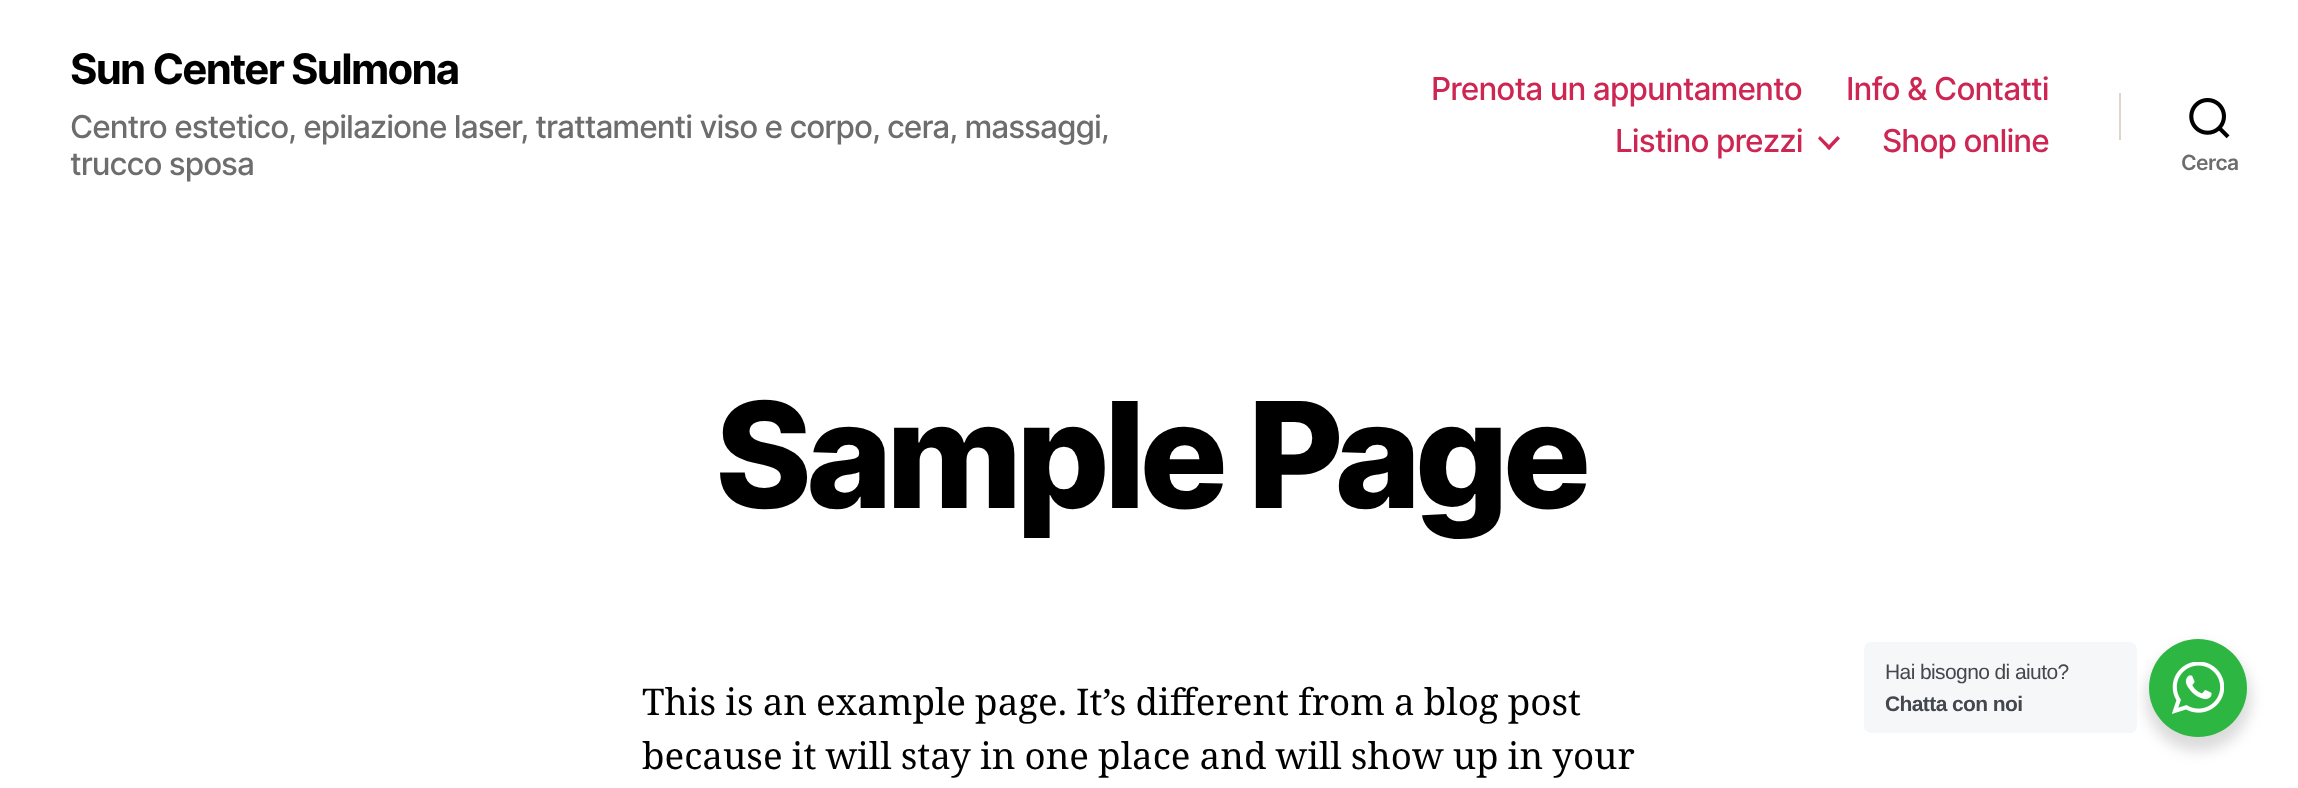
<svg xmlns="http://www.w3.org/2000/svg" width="2298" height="788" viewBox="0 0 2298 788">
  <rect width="100%" height="100%" fill="rgb(255,255,255)"/>
  <text x="70" y="84" font-family="Inter" font-size="42" font-weight="bold" letter-spacing="-1.75" fill="rgb(0,0,0)">Sun Center Sulmona</text>
  <g font-family="Inter" font-size="31.5" font-weight="500" letter-spacing="-0.98" fill="rgb(109,109,109)">
    <text>
      <tspan x="70" y="138">Centro estetico, epilazione laser, trattamenti viso e corpo, cera, massaggi,</tspan>
      <tspan x="70" y="175">trucco sposa</tspan>
    </text>
  </g>
  <g font-family="Inter" font-size="31.5" font-weight="500" letter-spacing="-0.9" fill="rgb(205,38,83)">
    <text x="1431" y="100">Prenota un appuntamento</text>
    <text x="1846" y="100">Info &amp; Contatti</text>
    <text x="1615" y="152">Listino prezzi</text>
  </g>
  <path d="M1818 138.5L1820 136L1831.5 147.5L1829 150Z" fill="rgb(205,38,83)"/>
  <path d="M1826.5 147.5L1837.5 136L1840 138.5L1829 150Z" fill="rgb(205,38,83)"/>
  <text x="1882" y="152" font-family="Inter" font-size="31.5" font-weight="500" letter-spacing="-0.9" fill="rgb(205,38,83)">Shop online</text>
  <rect x="2119" y="93" width="2" height="47" fill="rgb(220,215,202)"/>
  <image x="2189" y="98" width="41" height="41" href="pic1.png"/>
  <text x="2181" y="170" font-family="Inter" font-size="21" font-weight="600" letter-spacing="-0.5" fill="rgb(109,109,109)">Cerca</text>
  <text x="715" y="508" font-family="Inter" font-size="147" font-weight="800" letter-spacing="-6.1" fill="rgb(0,0,0)">Sample Page</text>
  <g font-family="Noto Serif" font-size="36.75" fill="rgb(0,0,0)">
    <text>
      <tspan x="642" y="715" word-spacing="-0.5">This is an example page. It’s different from a blog post</tspan>
      <tspan x="642" y="769" word-spacing="-0.5">because it will stay in one place and will show up in your</tspan>
    </text>
  </g>
  <rect x="2146" y="646" width="105" height="105" rx="52.5" fill="rgba(0,0,0,0.14)" filter="blur(7px)"/>
  <rect x="1864" y="642" width="273" height="91" rx="7" fill="rgb(245,247,249)"/>
  <text x="1885" y="679" font-family="Liberation Sans" font-size="21" letter-spacing="-0.6" fill="rgb(67,71,78)">Hai bisogno di aiuto?</text>
  <text x="1885" y="711" font-family="Liberation Sans" font-size="21" font-weight="bold" letter-spacing="-0.6" fill="rgb(67,71,78)">Chatta con noi</text>
  <circle cx="2198" cy="688" r="49" fill="rgb(45,183,66)"/>
  <image x="2172" y="662" width="52" height="52" href="pic2.png"/>
</svg>
